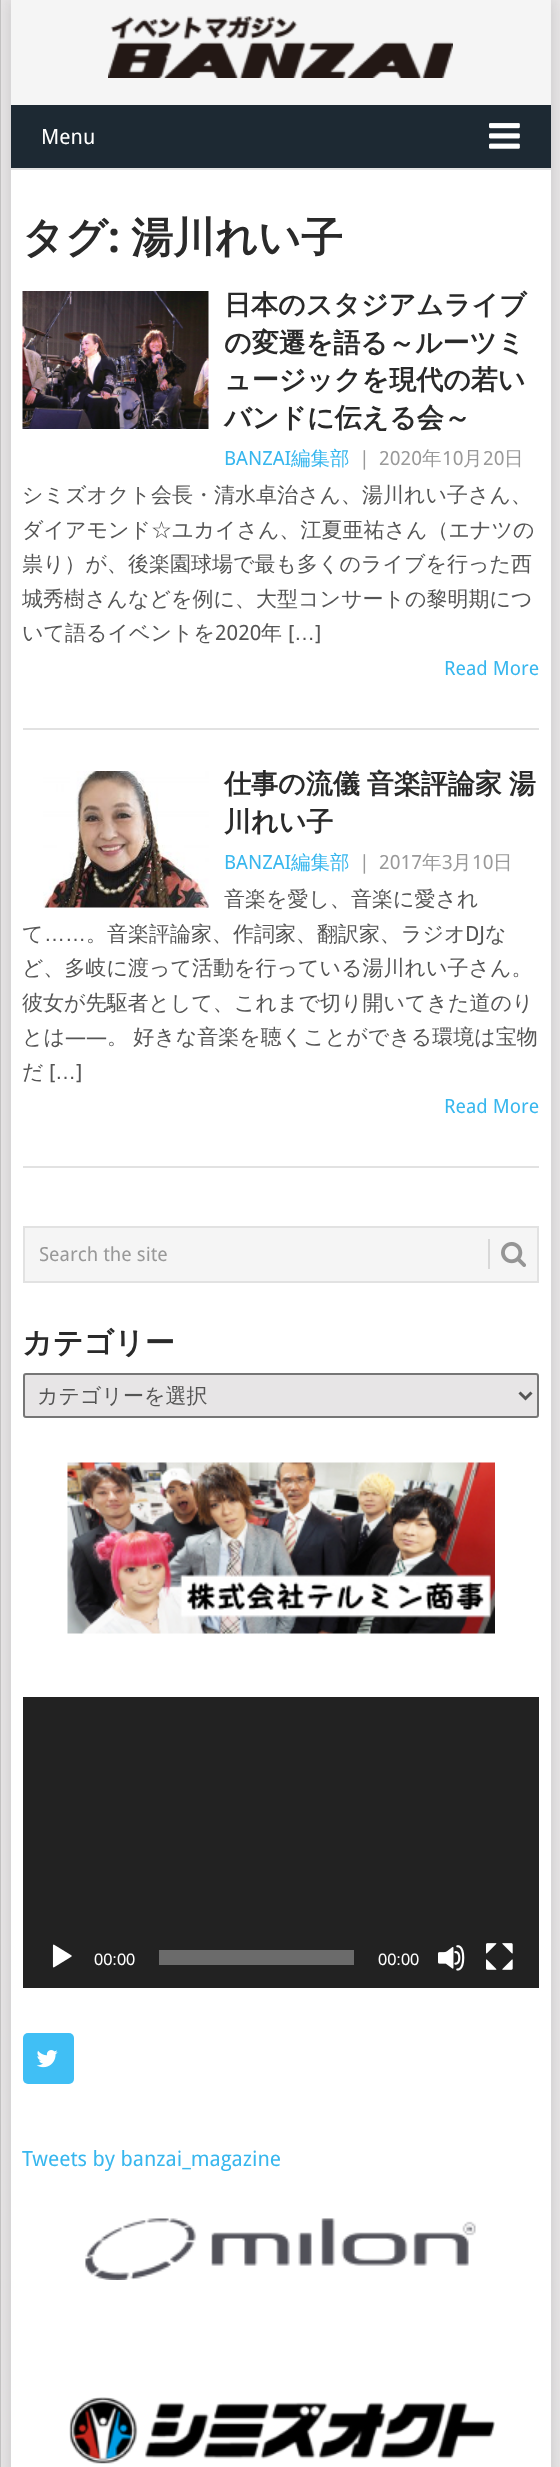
<svg xmlns="http://www.w3.org/2000/svg" width="560" height="2467" viewBox="0 0 560 2467">
  <rect width="100%" height="100%" fill="rgb(231,229,230)"/>
  <rect x="11" y="0" width="540" height="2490" fill="rgba(50,50,50,0.17)" filter="blur(7.5px)"/>
  <rect x="11" y="170" width="540" height="2297" fill="rgb(255,255,255)"/>
  <rect x="11" y="0" width="540" height="105" fill="rgb(245,245,245)"/>
  <rect x="0" y="0" width="1" height="2467" fill="rgb(194,193,193)"/>
  <image x="108" y="16" width="345" height="62" href="pic1.png"/>
  <rect x="11" y="105" width="540" height="63" fill="rgb(29,41,51)"/>
  <text x="41" y="144" font-family="Droid Sans" font-size="21" fill="rgb(255,255,255)">Menu</text>
  <image x="489" y="123" width="31" height="26" href="pic2.png"/>
  <rect x="11" y="168" width="540" height="2" fill="rgb(226,226,226)"/>
  <text x="22" y="252" font-family="WenQuanYi Zen Hei" font-size="42" font-weight="bold" fill="rgb(42,42,42)">タグ</text>
  <text x="108" y="252" font-family="Droid Sans" font-size="42" font-weight="bold" fill="rgb(42,42,42)">:</text>
  <text x="131" y="252" font-family="WenQuanYi Zen Hei" font-size="42" font-weight="bold" fill="rgb(42,42,42)">湯川れい子</text>
  <rect x="23" y="728" width="516" height="2" fill="rgb(226,226,226)"/>
  <image x="22" y="291" width="187" height="138" href="pic3.png"/>
  <g font-family="WenQuanYi Zen Hei" font-size="27" font-weight="bold" fill="rgb(42,42,42)">
    <text>
      <tspan x="224" y="314">日本のスタジアムライブ</tspan>
      <tspan x="224" y="352">の変遷を語る～ルーツミ</tspan>
      <tspan x="224" y="389">ュージックを現代の若い</tspan>
      <tspan x="224" y="427">バンドに伝える会～</tspan>
    </text>
  </g>
  <text x="224" y="465" font-family="Droid Sans" font-size="19.5" fill="rgb(56,183,238)">BANZAI</text>
  <text x="291" y="465" font-family="WenQuanYi Zen Hei" font-size="19.5" font-weight="500" fill="rgb(56,183,238)">編集部</text>
  <g font-family="Droid Sans" font-size="19.5" fill="rgb(153,153,153)">
    <text x="359" y="465">|</text>
    <text x="379" y="465">2020</text>
  </g>
  <text x="422" y="465" font-family="WenQuanYi Zen Hei" font-size="19.5" font-weight="500" fill="rgb(153,153,153)">年</text>
  <text x="442" y="465" font-family="Droid Sans" font-size="19.5" fill="rgb(153,153,153)">10</text>
  <text x="463" y="465" font-family="WenQuanYi Zen Hei" font-size="19.5" font-weight="500" fill="rgb(153,153,153)">月</text>
  <text x="483" y="465" font-family="Droid Sans" font-size="19.5" fill="rgb(153,153,153)">20</text>
  <text x="504" y="465" font-family="WenQuanYi Zen Hei" font-size="19.5" font-weight="500" fill="rgb(153,153,153)">日</text>
  <g font-family="WenQuanYi Zen Hei" font-size="21" font-weight="500" fill="rgb(85,85,85)">
    <text>
      <tspan x="22" y="502">シミズオクト会長・清水卓治さん、湯川れい子さん、</tspan>
      <tspan x="22" y="537">ダイアモンド☆ユカイさん、江夏亜祐さん（エナツの</tspan>
      <tspan x="22" y="571">祟り）が、後楽園球場で最も多くのライブを行った西</tspan>
      <tspan x="22" y="606">城秀樹さんなどを例に、大型コンサートの黎明期につ</tspan>
      <tspan x="22" y="640">いて語るイベントを</tspan>
    </text>
  </g>
  <text x="215" y="640" font-family="Droid Sans" font-size="21" fill="rgb(85,85,85)">2020</text>
  <text x="261" y="640" font-family="WenQuanYi Zen Hei" font-size="21" font-weight="500" fill="rgb(85,85,85)">年</text>
  <text x="288" y="640" font-family="Droid Sans" font-size="21" fill="rgb(85,85,85)">[</text>
  <text x="294" y="640" font-family="Liberation Sans" font-size="21" fill="rgb(85,85,85)">…</text>
  <text x="315" y="640" font-family="Droid Sans" font-size="21" fill="rgb(85,85,85)">]</text>
  <text x="444" y="675" font-family="Droid Sans" font-size="19.5" fill="rgb(56,183,238)">Read More</text>
  <rect x="23" y="1166" width="516" height="2" fill="rgb(226,226,226)"/>
  <image x="43" y="771" width="166" height="137" href="pic4.png"/>
  <g font-family="WenQuanYi Zen Hei" font-size="27" font-weight="bold" fill="rgb(42,42,42)">
    <text>
      <tspan x="224" y="793" word-spacing="-1">仕事の流儀 音楽評論家 湯</tspan>
      <tspan x="224" y="831">川れい子</tspan>
    </text>
  </g>
  <text x="224" y="869" font-family="Droid Sans" font-size="19.5" fill="rgb(56,183,238)">BANZAI</text>
  <text x="291" y="869" font-family="WenQuanYi Zen Hei" font-size="19.5" font-weight="500" fill="rgb(56,183,238)">編集部</text>
  <g font-family="Droid Sans" font-size="19.5" fill="rgb(153,153,153)">
    <text x="359" y="869">|</text>
    <text x="379" y="869">2017</text>
  </g>
  <text x="422" y="869" font-family="WenQuanYi Zen Hei" font-size="19.5" font-weight="500" fill="rgb(153,153,153)">年</text>
  <text x="442" y="869" font-family="Droid Sans" font-size="19.5" fill="rgb(153,153,153)">3</text>
  <text x="452" y="869" font-family="WenQuanYi Zen Hei" font-size="19.5" font-weight="500" fill="rgb(153,153,153)">月</text>
  <text x="472" y="869" font-family="Droid Sans" font-size="19.5" fill="rgb(153,153,153)">10</text>
  <text x="493" y="869" font-family="WenQuanYi Zen Hei" font-size="19.5" font-weight="500" fill="rgb(153,153,153)">日</text>
  <g font-family="WenQuanYi Zen Hei" font-size="21" font-weight="500" fill="rgb(85,85,85)">
    <text x="224" y="906">音楽を愛し、音楽に愛され</text>
    <text x="22" y="941">て</text>
  </g>
  <text x="44" y="941" font-family="Liberation Sans" font-size="21" fill="rgb(85,85,85)">……</text>
  <text x="86" y="941" font-family="WenQuanYi Zen Hei" font-size="21" font-weight="500" fill="rgb(85,85,85)">。音楽評論家、作詞家、翻訳家、ラジオ</text>
  <text x="465" y="941" font-family="Droid Sans" font-size="21" fill="rgb(85,85,85)">DJ</text>
  <g font-family="WenQuanYi Zen Hei" font-size="21" font-weight="500" fill="rgb(85,85,85)">
    <text x="485" y="941">な</text>
    <text>
      <tspan x="22" y="975">ど、多岐に渡って活動を行っている湯川れい子さん。</tspan>
      <tspan x="22" y="1010">彼女が先駆者として、これまで切り開いてきた道のり</tspan>
      <tspan x="22" y="1044">とは</tspan>
    </text>
  </g>
  <text x="65" y="1044" font-family="Droid Sans" font-size="21" fill="rgb(85,85,85)">——</text>
  <g font-family="WenQuanYi Zen Hei" font-size="21" font-weight="500" fill="rgb(85,85,85)">
    <text x="107" y="1044" word-spacing="-1">。 好きな音楽を聴くことができる環境は宝物</text>
    <text x="22" y="1079">だ</text>
  </g>
  <text x="49" y="1079" font-family="Droid Sans" font-size="21" fill="rgb(85,85,85)">[</text>
  <text x="55" y="1079" font-family="Liberation Sans" font-size="21" fill="rgb(85,85,85)">…</text>
  <text x="76" y="1079" font-family="Droid Sans" font-size="21" fill="rgb(85,85,85)">]</text>
  <text x="444" y="1113" font-family="Droid Sans" font-size="19.5" fill="rgb(56,183,238)">Read More</text>
  <rect x="24" y="1227" width="514" height="55" fill="rgb(245,245,245)" stroke="rgb(226,226,226)" stroke-width="2"/>
  <text x="39" y="1261" font-family="Droid Sans" font-size="19.5" fill="rgb(153,153,153)">Search the site</text>
  <rect x="488" y="1239" width="2" height="30" fill="rgb(216,216,216)"/>
  <image x="501" y="1242" width="25" height="25" href="pic5.png"/>
  <text x="22" y="1353" font-family="WenQuanYi Zen Hei" font-size="30" font-weight="bold" fill="rgb(42,42,42)">カテゴリー</text>
  <rect x="24" y="1374" width="514" height="43" rx="2" fill="rgb(231,229,230)" stroke="rgb(118,118,118)" stroke-width="2"/>
  <path d="M519.5 1392.5L525.5 1398.5L531.5 1392.5" fill="none" stroke="rgb(85,85,85)" stroke-width="3"/>
  <text x="37" y="1403" font-family="WenQuanYi Zen Hei" font-size="21" font-weight="500" fill="rgb(85,85,85)">カテゴリーを選択</text>
  <image x="67" y="1462" width="428" height="172" href="pic6.png"/>
  <rect x="23" y="1697" width="516" height="291" fill="rgb(34,34,34)"/>
  <image x="52" y="1944" width="20" height="24" href="pic7.png"/>
  <text x="94" y="1965" font-family="Liberation Sans" font-size="16.5" fill="rgb(255,255,255)">00:00</text>
  <rect x="159" y="1950" width="195" height="15" fill="rgb(107,107,107)"/>
  <text x="378" y="1965" font-family="Liberation Sans" font-size="16.5" fill="rgb(255,255,255)">00:00</text>
  <image x="438" y="1945" width="27" height="26" href="pic8.png"/>
  <image x="486" y="1943" width="27" height="27" href="pic9.png"/>
  <rect x="23" y="2033" width="51" height="51" rx="5" fill="rgb(64,191,245)"/>
  <image x="36" y="2050" width="22" height="18" href="pic10.png"/>
  <text x="22" y="2166" font-family="Droid Sans" font-size="21" fill="rgb(56,183,238)">Tweets by banzai_magazine</text>
  <image x="85" y="2218" width="391" height="62" href="pic11.png"/>
  <image x="69" y="2397" width="426" height="67" href="pic12.png"/>
</svg>
